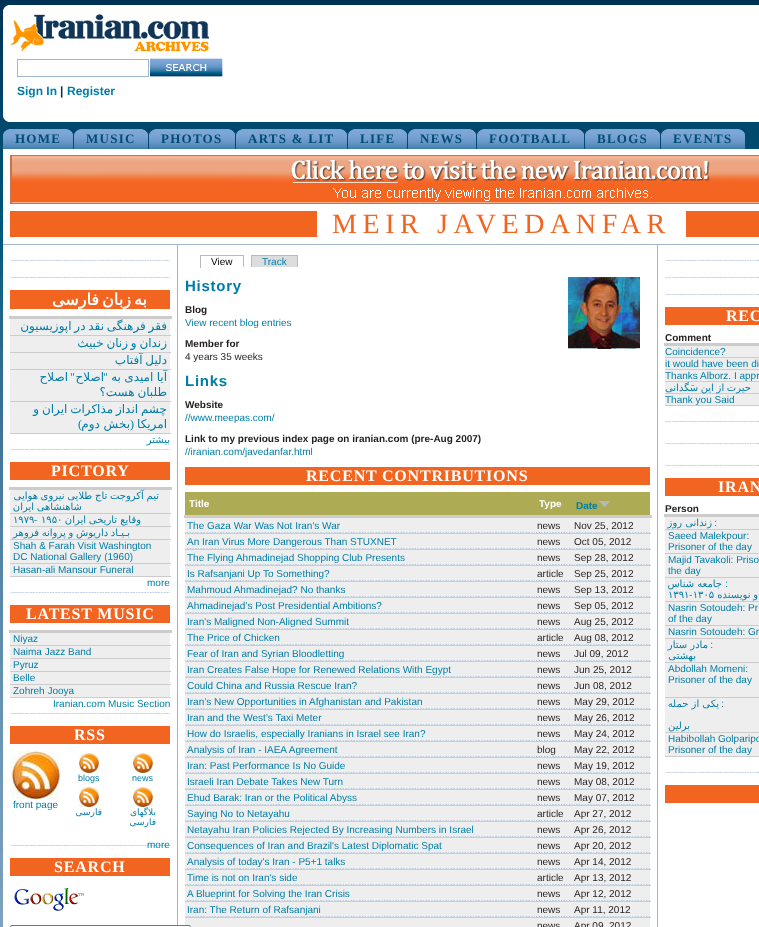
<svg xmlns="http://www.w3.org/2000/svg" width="759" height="927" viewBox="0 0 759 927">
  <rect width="100%" height="100%" fill="rgb(255,255,255)"/>
  <image x="0" y="0" width="759" height="927" href="pic1.png"/>
  <rect x="3" y="5" width="756" height="117" fill="rgb(255,255,255)"/>
  <image x="3" y="5" width="5" height="5" href="pic2.png"/>
  <image x="10" y="14" width="199" height="38" href="pic3.png"/>
  <rect x="17.5" y="59.5" width="131" height="17" fill="none" stroke="rgb(158,181,204)"/>
  <image x="150" y="58" width="73" height="19" href="pic4.png"/>
  <text x="17" y="95" font-family="Liberation Sans" font-size="12" font-weight="bold" fill="rgb(0,125,166)">Sign In</text>
  <text x="60" y="95" font-family="Liberation Sans" font-size="12" font-weight="bold" fill="rgb(0,49,84)">|</text>
  <text x="67" y="95" font-family="Liberation Sans" font-size="12" font-weight="bold" fill="rgb(0,125,166)">Register</text>
  <image x="3" y="117" width="5" height="5" href="pic5.png"/>
  <image x="67" y="129" width="6" height="20" href="pic6.png"/>
  <image x="3" y="129" width="64" height="20" href="pic7.png"/>
  <text x="15" y="143" font-family="Liberation Serif" font-size="13" font-weight="bold" letter-spacing="1.25" fill="rgb(0,76,115)">HOME</text>
  <image x="142" y="129" width="6" height="20" href="pic6.png"/>
  <image x="74" y="129" width="68" height="20" href="pic8.png"/>
  <text x="86" y="143" font-family="Liberation Serif" font-size="13" font-weight="bold" letter-spacing="1.25" fill="rgb(0,76,115)">MUSIC</text>
  <image x="229" y="129" width="6" height="20" href="pic6.png"/>
  <image x="149" y="129" width="80" height="20" href="pic9.png"/>
  <text x="161" y="143" font-family="Liberation Serif" font-size="13" font-weight="bold" letter-spacing="1.25" fill="rgb(0,76,115)">PHOTOS</text>
  <image x="341" y="129" width="6" height="20" href="pic6.png"/>
  <image x="236" y="129" width="105" height="20" href="pic10.png"/>
  <text x="248" y="143" font-family="Liberation Serif" font-size="13" font-weight="bold" letter-spacing="1.25" fill="rgb(0,76,115)">ARTS &amp; LIT</text>
  <image x="401" y="129" width="6" height="20" href="pic6.png"/>
  <image x="348" y="129" width="53" height="20" href="pic11.png"/>
  <text x="360" y="143" font-family="Liberation Serif" font-size="13" font-weight="bold" letter-spacing="1.25" fill="rgb(0,76,115)">LIFE</text>
  <image x="470" y="129" width="6" height="20" href="pic6.png"/>
  <image x="408" y="129" width="62" height="20" href="pic12.png"/>
  <text x="420" y="143" font-family="Liberation Serif" font-size="13" font-weight="bold" letter-spacing="1.25" fill="rgb(0,76,115)">NEWS</text>
  <image x="578" y="129" width="6" height="20" href="pic6.png"/>
  <image x="477" y="129" width="101" height="20" href="pic13.png"/>
  <text x="489" y="143" font-family="Liberation Serif" font-size="13" font-weight="bold" letter-spacing="1.25" fill="rgb(0,76,115)">FOOTBALL</text>
  <image x="654" y="129" width="6" height="20" href="pic6.png"/>
  <image x="585" y="129" width="69" height="20" href="pic14.png"/>
  <text x="597" y="143" font-family="Liberation Serif" font-size="13" font-weight="bold" letter-spacing="1.25" fill="rgb(0,76,115)">BLOGS</text>
  <image x="739" y="129" width="6" height="20" href="pic6.png"/>
  <image x="661" y="129" width="78" height="20" href="pic15.png"/>
  <text x="673" y="143" font-family="Liberation Serif" font-size="13" font-weight="bold" letter-spacing="1.25" fill="rgb(0,76,115)">EVENTS</text>
  <rect x="3" y="245" width="756" height="682" fill="rgb(255,255,255)"/>
  <rect x="3" y="149" width="756" height="95" fill="rgb(255,255,255)"/>
  <rect x="3" y="244" width="756" height="1" fill="rgb(158,181,204)"/>
  <image x="10" y="155" width="749" height="49" href="pic16.png"/>
  <rect x="10" y="211" width="749" height="26" fill="rgb(242,101,33)"/>
  <rect x="317" y="211" width="369" height="26" fill="rgb(255,255,255)"/>
  <text x="332" y="233" font-family="Liberation Serif" font-size="28" letter-spacing="5.6" fill="rgb(242,101,33)">MEIR JAVEDANFAR</text>
  <rect x="177" y="245" width="1" height="682" fill="rgb(158,181,204)"/>
  <image x="10" y="260" width="160" height="1" href="pic17.png"/>
  <image x="10" y="277" width="160" height="1" href="pic17.png"/>
  <image x="10" y="449" width="160" height="1" href="pic17.png"/>
  <rect x="10" y="290" width="160" height="19" fill="rgb(242,101,33)"/>
  <text x="147" y="305" word-spacing="-2" font-family="DejaVu Sans" font-size="16" font-weight="bold" letter-spacing="0.8" direction="rtl" fill="rgb(255,255,255)">به زبان فارسی</text>
  <rect x="9" y="316" width="163" height="3" fill="rgb(204,204,204)"/>
  <rect x="10" y="319" width="160" height="16" fill="rgb(238,238,238)"/>
  <rect x="10" y="335" width="161" height="1" fill="rgb(204,204,204)"/>
  <text x="167" y="330" word-spacing="-1" font-family="DejaVu Sans" font-size="12" direction="rtl" fill="rgb(0,125,166)">فقر فرهنگی نقد در اپوزیسیون</text>
  <rect x="10" y="336" width="160" height="16" fill="rgb(238,238,238)"/>
  <rect x="10" y="352" width="161" height="1" fill="rgb(204,204,204)"/>
  <text x="167" y="347" word-spacing="-1" font-family="DejaVu Sans" font-size="12" direction="rtl" fill="rgb(0,125,166)">زندان و زنان خبیث</text>
  <rect x="10" y="353" width="160" height="16" fill="rgb(238,238,238)"/>
  <rect x="10" y="369" width="161" height="1" fill="rgb(204,204,204)"/>
  <text x="167" y="364" word-spacing="-1" font-family="DejaVu Sans" font-size="12" direction="rtl" fill="rgb(0,125,166)">دلیل آفتاب</text>
  <rect x="10" y="370" width="160" height="31" fill="rgb(238,238,238)"/>
  <rect x="10" y="401" width="161" height="1" fill="rgb(204,204,204)"/>
  <text x="68" y="381" font-family="DejaVu Sans" font-size="12" direction="rtl" fill="rgb(0,125,166)">اصلاح</text>
  <text x="75" y="381" font-family="Liberation Serif" font-size="12" direction="rtl" fill="rgb(0,125,166)">"</text>
  <text x="104" y="381" font-family="DejaVu Sans" font-size="12" direction="rtl" fill="rgb(0,125,166)">اصلاح</text>
  <text x="108" y="381" font-family="Liberation Serif" font-size="12" direction="rtl" fill="rgb(0,125,166)">"</text>
  <g font-family="DejaVu Sans" font-size="12" direction="rtl" fill="rgb(0,125,166)">
    <text>
      <tspan x="167" y="381" word-spacing="-0.5">آیا امیدی به</tspan>
      <tspan x="167" y="396" word-spacing="-1">طلبان هست؟</tspan>
    </text>
  </g>
  <rect x="10" y="402" width="160" height="31" fill="rgb(238,238,238)"/>
  <rect x="10" y="433" width="161" height="1" fill="rgb(204,204,204)"/>
  <text x="167" y="413" word-spacing="-1" font-family="DejaVu Sans" font-size="12" direction="rtl" fill="rgb(0,125,166)">چشم انداز مذاکرات ایران و</text>
  <text x="82" y="428" font-family="Liberation Serif" font-size="12" direction="rtl" fill="rgb(0,125,166)">)</text>
  <text x="130" y="428" font-family="DejaVu Sans" font-size="12" direction="rtl" fill="rgb(0,125,166)">بخش دوم</text>
  <text x="134" y="428" font-family="Liberation Serif" font-size="12" direction="rtl" fill="rgb(0,125,166)">(</text>
  <text x="167" y="428" font-family="DejaVu Sans" font-size="12" direction="rtl" fill="rgb(0,125,166)">امریکا</text>
  <text x="170" y="443" font-family="DejaVu Sans" font-size="10" direction="rtl" fill="rgb(0,125,166)">بیشتر</text>
  <image x="10" y="592" width="160" height="1" href="pic17.png"/>
  <rect x="10" y="462" width="160" height="18" fill="rgb(242,101,33)"/>
  <text x="51" y="476" font-family="Liberation Serif" font-size="16" font-weight="bold" letter-spacing="0.8" fill="rgb(255,255,255)">PICTORY</text>
  <rect x="9" y="487" width="163" height="3" fill="rgb(204,204,204)"/>
  <rect x="10" y="490" width="160" height="23" fill="rgb(238,238,238)"/>
  <rect x="10" y="513" width="161" height="1" fill="rgb(204,204,204)"/>
  <g font-family="DejaVu Sans" font-size="10" direction="rtl" fill="rgb(0,125,166)">
    <text x="159" y="499" word-spacing="-0.5">تیم آکروجت تاج طلایی نیروی هوایی</text>
    <text x="82" y="510" word-spacing="-0.5">شاهنشاهی ایران</text>
  </g>
  <rect x="10" y="514" width="160" height="12" fill="rgb(238,238,238)"/>
  <rect x="10" y="526" width="161" height="1" fill="rgb(204,204,204)"/>
  <text x="13" y="523" font-family="DejaVu Sans" font-size="10" fill="rgb(0,125,166)">۱۹۷۹</text>
  <text x="34" y="523" font-family="Liberation Sans" font-size="10" fill="rgb(0,125,166)">-</text>
  <text x="41" y="523" font-family="DejaVu Sans" font-size="10" fill="rgb(0,125,166)">۱۹۵۰</text>
  <g font-family="DejaVu Sans" font-size="10" direction="rtl" fill="rgb(0,125,166)">
    <text x="86" y="523">ایران</text>
    <text x="141" y="523">وقایع تاریخی</text>
  </g>
  <rect x="10" y="527" width="160" height="12" fill="rgb(238,238,238)"/>
  <rect x="10" y="539" width="161" height="1" fill="rgb(204,204,204)"/>
  <text x="130" y="536" word-spacing="-0.5" font-family="DejaVu Sans" font-size="10" direction="rtl" fill="rgb(0,125,166)">بـیـاد داریوش و پروانه فروهر</text>
  <rect x="10" y="540" width="160" height="23" fill="rgb(238,238,238)"/>
  <rect x="10" y="563" width="161" height="1" fill="rgb(204,204,204)"/>
  <g font-family="Liberation Sans" font-size="10" fill="rgb(0,125,166)">
    <text>
      <tspan x="13" y="549">Shah &amp; Farah Visit Washington</tspan>
      <tspan x="13" y="560">DC National Gallery (1960)</tspan>
    </text>
  </g>
  <rect x="10" y="564" width="160" height="12" fill="rgb(238,238,238)"/>
  <rect x="10" y="576" width="161" height="1" fill="rgb(204,204,204)"/>
  <g font-family="Liberation Sans" font-size="10" fill="rgb(0,125,166)">
    <text x="13" y="573">Hasan-ali Mansour Funeral</text>
    <text x="147" y="586">more</text>
  </g>
  <image x="10" y="713" width="160" height="1" href="pic17.png"/>
  <rect x="10" y="605" width="160" height="18" fill="rgb(242,101,33)"/>
  <text x="26" y="619" font-family="Liberation Serif" font-size="16" font-weight="bold" letter-spacing="0.8" fill="rgb(255,255,255)">LATEST MUSIC</text>
  <rect x="9" y="630" width="163" height="3" fill="rgb(204,204,204)"/>
  <rect x="10" y="633" width="160" height="12" fill="rgb(238,238,238)"/>
  <rect x="10" y="645" width="161" height="1" fill="rgb(204,204,204)"/>
  <text x="13" y="642" font-family="Liberation Sans" font-size="10" fill="rgb(0,125,166)">Niyaz</text>
  <rect x="10" y="646" width="160" height="12" fill="rgb(238,238,238)"/>
  <rect x="10" y="658" width="161" height="1" fill="rgb(204,204,204)"/>
  <text x="13" y="655" font-family="Liberation Sans" font-size="10" fill="rgb(0,125,166)">Naima Jazz Band</text>
  <rect x="10" y="659" width="160" height="12" fill="rgb(238,238,238)"/>
  <rect x="10" y="671" width="161" height="1" fill="rgb(204,204,204)"/>
  <text x="13" y="668" font-family="Liberation Sans" font-size="10" fill="rgb(0,125,166)">Pyruz</text>
  <rect x="10" y="672" width="160" height="12" fill="rgb(238,238,238)"/>
  <rect x="10" y="684" width="161" height="1" fill="rgb(204,204,204)"/>
  <text x="13" y="681" font-family="Liberation Sans" font-size="10" fill="rgb(0,125,166)">Belle</text>
  <rect x="10" y="685" width="160" height="12" fill="rgb(238,238,238)"/>
  <rect x="10" y="697" width="161" height="1" fill="rgb(204,204,204)"/>
  <g font-family="Liberation Sans" font-size="10" fill="rgb(0,125,166)">
    <text x="13" y="694">Zohreh Jooya</text>
    <text x="53" y="707">Iranian.com Music Section</text>
  </g>
  <image x="10" y="845" width="160" height="1" href="pic17.png"/>
  <rect x="10" y="726" width="160" height="18" fill="rgb(242,101,33)"/>
  <text x="74" y="740" font-family="Liberation Serif" font-size="16" font-weight="bold" letter-spacing="0.8" fill="rgb(255,255,255)">RSS</text>
  <image x="79" y="753" width="20" height="20" href="pic18.png"/>
  <text x="78" y="781" font-family="Liberation Sans" font-size="9" fill="rgb(0,125,166)">blogs</text>
  <image x="133" y="753" width="20" height="20" href="pic19.png"/>
  <text x="132" y="781" font-family="Liberation Sans" font-size="9" fill="rgb(0,125,166)">news</text>
  <image x="12" y="751" width="48" height="48" href="pic20.png"/>
  <text x="13" y="808" font-family="Liberation Sans" font-size="10" fill="rgb(0,125,166)">front page</text>
  <image x="79" y="787" width="20" height="20" href="pic21.png"/>
  <text x="102" y="815" font-family="DejaVu Sans" font-size="9" direction="rtl" fill="rgb(0,125,166)">فارسی</text>
  <image x="133" y="787" width="20" height="20" href="pic22.png"/>
  <g font-family="DejaVu Sans" font-size="9" direction="rtl" fill="rgb(0,125,166)">
    <text>
      <tspan x="156" y="815">بلاگهای</tspan>
      <tspan x="156" y="825">فارسی</tspan>
    </text>
  </g>
  <text x="147" y="848" font-family="Liberation Sans" font-size="10" fill="rgb(0,125,166)">more</text>
  <rect x="10" y="858" width="160" height="18" fill="rgb(242,101,33)"/>
  <text x="54" y="872" font-family="Liberation Serif" font-size="16" font-weight="bold" letter-spacing="0.8" fill="rgb(255,255,255)">SEARCH</text>
  <image x="14" y="888" width="70" height="23" href="pic23.png"/>
  <rect x="185" y="918" width="465" height="9" fill="rgb(238,238,238)"/>
  <rect x="10.5" y="925.5" width="180" height="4" rx="1.5" fill="rgb(255,255,255)" stroke="rgb(118,118,118)"/>
  <rect x="657" y="245" width="1" height="682" fill="rgb(158,181,204)"/>
  <text x="211" y="265" font-family="Liberation Sans" font-size="10" fill="rgb(0,0,0)">View</text>
  <rect x="200" y="255" width="44" height="1" fill="rgb(187,187,187)"/>
  <rect x="243" y="255" width="1" height="13" fill="rgb(187,187,187)"/>
  <rect x="243" y="267" width="1" height="1" fill="rgb(255,255,255)"/>
  <rect x="200" y="255" width="1" height="13" fill="rgb(187,187,187)"/>
  <rect x="252" y="256" width="45" height="11" fill="rgb(221,221,221)"/>
  <text x="262" y="265" font-family="Liberation Sans" font-size="10" fill="rgb(0,125,166)">Track</text>
  <rect x="251" y="255" width="47" height="1" fill="rgb(187,187,187)"/>
  <rect x="297" y="255" width="1" height="12" fill="rgb(187,187,187)"/>
  <rect x="251" y="255" width="1" height="12" fill="rgb(187,187,187)"/>
  <text x="185" y="291" font-family="Liberation Sans" font-size="15" font-weight="bold" letter-spacing="0.75" fill="rgb(0,125,166)">History</text>
  <image x="568" y="277" width="72" height="72" href="pic24.png"/>
  <text x="185" y="313" font-family="Liberation Sans" font-size="10" font-weight="bold" fill="rgb(34,30,31)">Blog</text>
  <text x="185" y="326" font-family="Liberation Sans" font-size="10" fill="rgb(0,125,166)">View recent blog entries</text>
  <text x="185" y="347" font-family="Liberation Sans" font-size="10" font-weight="bold" fill="rgb(34,30,31)">Member for</text>
  <text x="185" y="360" font-family="Liberation Sans" font-size="10" fill="rgb(34,30,31)">4 years 35 weeks</text>
  <text x="185" y="386" font-family="Liberation Sans" font-size="15" font-weight="bold" letter-spacing="0.75" fill="rgb(0,125,166)">Links</text>
  <text x="185" y="408" font-family="Liberation Sans" font-size="10" font-weight="bold" fill="rgb(34,30,31)">Website</text>
  <text x="185" y="421" font-family="Liberation Sans" font-size="10" fill="rgb(0,125,166)">//www.meepas.com/</text>
  <text x="185" y="442" font-family="Liberation Sans" font-size="10" font-weight="bold" fill="rgb(34,30,31)">Link to my previous index page on iranian.com (pre-Aug 2007)</text>
  <text x="185" y="455" font-family="Liberation Sans" font-size="10" fill="rgb(0,125,166)">//iranian.com/javedanfar.html</text>
  <rect x="185" y="467" width="465" height="18" fill="rgb(242,101,33)"/>
  <text x="306" y="481" font-family="Liberation Serif" font-size="16" font-weight="bold" letter-spacing="0.8" fill="rgb(255,255,255)">RECENT CONTRIBUTIONS</text>
  <rect x="185" y="492" width="465" height="23" fill="rgb(173,171,83)"/>
  <g font-family="Liberation Sans" font-size="10" font-weight="bold" fill="rgb(255,255,255)">
    <text x="189" y="507">Title</text>
    <text x="539" y="507">Type</text>
  </g>
  <rect x="184" y="515" width="468" height="3" fill="rgb(204,204,204)"/>
  <text x="576" y="509" font-family="Liberation Sans" font-size="10" font-weight="bold" fill="rgb(0,125,166)">Date</text>
  <image x="599" y="501" width="11" height="6" href="pic25.png"/>
  <rect x="185" y="518" width="465" height="14" fill="rgb(238,238,238)"/>
  <rect x="185" y="533" width="466" height="1" fill="rgb(204,204,204)"/>
  <image x="185" y="532" width="350" height="1" href="pic26.png"/>
  <text x="187" y="529" font-family="Liberation Sans" font-size="10" fill="rgb(0,125,166)">The Gaza War Was Not Iran's War</text>
  <image x="535" y="532" width="37" height="1" href="pic27.png"/>
  <text x="537" y="529" font-family="Liberation Sans" font-size="10" fill="rgb(34,30,31)">news</text>
  <image x="572" y="532" width="78" height="1" href="pic28.png"/>
  <text x="574" y="529" font-family="Liberation Sans" font-size="10" fill="rgb(34,30,31)">Nov 25, 2012</text>
  <rect x="185" y="534" width="465" height="14" fill="rgb(238,238,238)"/>
  <rect x="185" y="549" width="466" height="1" fill="rgb(204,204,204)"/>
  <image x="185" y="548" width="350" height="1" href="pic26.png"/>
  <text x="187" y="545" font-family="Liberation Sans" font-size="10" fill="rgb(0,125,166)">An Iran Virus More Dangerous Than STUXNET</text>
  <image x="535" y="548" width="37" height="1" href="pic27.png"/>
  <text x="537" y="545" font-family="Liberation Sans" font-size="10" fill="rgb(34,30,31)">news</text>
  <image x="572" y="548" width="78" height="1" href="pic28.png"/>
  <text x="574" y="545" font-family="Liberation Sans" font-size="10" fill="rgb(34,30,31)">Oct 05, 2012</text>
  <rect x="185" y="550" width="465" height="14" fill="rgb(238,238,238)"/>
  <rect x="185" y="565" width="466" height="1" fill="rgb(204,204,204)"/>
  <image x="185" y="564" width="350" height="1" href="pic26.png"/>
  <text x="187" y="561" font-family="Liberation Sans" font-size="10" fill="rgb(0,125,166)">The Flying Ahmadinejad Shopping Club Presents</text>
  <image x="535" y="564" width="37" height="1" href="pic27.png"/>
  <text x="537" y="561" font-family="Liberation Sans" font-size="10" fill="rgb(34,30,31)">news</text>
  <image x="572" y="564" width="78" height="1" href="pic28.png"/>
  <text x="574" y="561" font-family="Liberation Sans" font-size="10" fill="rgb(34,30,31)">Sep 28, 2012</text>
  <rect x="185" y="566" width="465" height="14" fill="rgb(238,238,238)"/>
  <rect x="185" y="581" width="466" height="1" fill="rgb(204,204,204)"/>
  <image x="185" y="580" width="350" height="1" href="pic26.png"/>
  <text x="187" y="577" font-family="Liberation Sans" font-size="10" fill="rgb(0,125,166)">Is Rafsanjani Up To Something?</text>
  <image x="535" y="580" width="37" height="1" href="pic27.png"/>
  <text x="537" y="577" font-family="Liberation Sans" font-size="10" fill="rgb(34,30,31)">article</text>
  <image x="572" y="580" width="78" height="1" href="pic28.png"/>
  <text x="574" y="577" font-family="Liberation Sans" font-size="10" fill="rgb(34,30,31)">Sep 25, 2012</text>
  <rect x="185" y="582" width="465" height="14" fill="rgb(238,238,238)"/>
  <rect x="185" y="597" width="466" height="1" fill="rgb(204,204,204)"/>
  <image x="185" y="596" width="350" height="1" href="pic26.png"/>
  <text x="187" y="593" font-family="Liberation Sans" font-size="10" fill="rgb(0,125,166)">Mahmoud Ahmadinejad? No thanks</text>
  <image x="535" y="596" width="37" height="1" href="pic27.png"/>
  <text x="537" y="593" font-family="Liberation Sans" font-size="10" fill="rgb(34,30,31)">news</text>
  <image x="572" y="596" width="78" height="1" href="pic28.png"/>
  <text x="574" y="593" font-family="Liberation Sans" font-size="10" fill="rgb(34,30,31)">Sep 13, 2012</text>
  <rect x="185" y="598" width="465" height="14" fill="rgb(238,238,238)"/>
  <rect x="185" y="613" width="466" height="1" fill="rgb(204,204,204)"/>
  <image x="185" y="612" width="350" height="1" href="pic26.png"/>
  <text x="187" y="609" font-family="Liberation Sans" font-size="10" fill="rgb(0,125,166)">Ahmadinejad’s Post Presidential Ambitions?</text>
  <image x="535" y="612" width="37" height="1" href="pic27.png"/>
  <text x="537" y="609" font-family="Liberation Sans" font-size="10" fill="rgb(34,30,31)">news</text>
  <image x="572" y="612" width="78" height="1" href="pic28.png"/>
  <text x="574" y="609" font-family="Liberation Sans" font-size="10" fill="rgb(34,30,31)">Sep 05, 2012</text>
  <rect x="185" y="614" width="465" height="14" fill="rgb(238,238,238)"/>
  <rect x="185" y="629" width="466" height="1" fill="rgb(204,204,204)"/>
  <image x="185" y="628" width="350" height="1" href="pic26.png"/>
  <text x="187" y="625" font-family="Liberation Sans" font-size="10" fill="rgb(0,125,166)">Iran's Maligned Non-Aligned Summit</text>
  <image x="535" y="628" width="37" height="1" href="pic27.png"/>
  <text x="537" y="625" font-family="Liberation Sans" font-size="10" fill="rgb(34,30,31)">news</text>
  <image x="572" y="628" width="78" height="1" href="pic28.png"/>
  <text x="574" y="625" font-family="Liberation Sans" font-size="10" fill="rgb(34,30,31)">Aug 25, 2012</text>
  <rect x="185" y="630" width="465" height="14" fill="rgb(238,238,238)"/>
  <rect x="185" y="645" width="466" height="1" fill="rgb(204,204,204)"/>
  <image x="185" y="644" width="350" height="1" href="pic26.png"/>
  <text x="187" y="641" font-family="Liberation Sans" font-size="10" fill="rgb(0,125,166)">The Price of Chicken</text>
  <image x="535" y="644" width="37" height="1" href="pic27.png"/>
  <text x="537" y="641" font-family="Liberation Sans" font-size="10" fill="rgb(34,30,31)">article</text>
  <image x="572" y="644" width="78" height="1" href="pic28.png"/>
  <text x="574" y="641" font-family="Liberation Sans" font-size="10" fill="rgb(34,30,31)">Aug 08, 2012</text>
  <rect x="185" y="646" width="465" height="14" fill="rgb(238,238,238)"/>
  <rect x="185" y="661" width="466" height="1" fill="rgb(204,204,204)"/>
  <image x="185" y="660" width="350" height="1" href="pic26.png"/>
  <text x="187" y="657" font-family="Liberation Sans" font-size="10" fill="rgb(0,125,166)">Fear of Iran and Syrian Bloodletting</text>
  <image x="535" y="660" width="37" height="1" href="pic27.png"/>
  <text x="537" y="657" font-family="Liberation Sans" font-size="10" fill="rgb(34,30,31)">news</text>
  <image x="572" y="660" width="78" height="1" href="pic28.png"/>
  <text x="574" y="657" font-family="Liberation Sans" font-size="10" fill="rgb(34,30,31)">Jul 09, 2012</text>
  <rect x="185" y="662" width="465" height="14" fill="rgb(238,238,238)"/>
  <rect x="185" y="677" width="466" height="1" fill="rgb(204,204,204)"/>
  <image x="185" y="676" width="350" height="1" href="pic26.png"/>
  <text x="187" y="673" font-family="Liberation Sans" font-size="10" fill="rgb(0,125,166)">Iran Creates False Hope for Renewed Relations With Egypt</text>
  <image x="535" y="676" width="37" height="1" href="pic27.png"/>
  <text x="537" y="673" font-family="Liberation Sans" font-size="10" fill="rgb(34,30,31)">news</text>
  <image x="572" y="676" width="78" height="1" href="pic28.png"/>
  <text x="574" y="673" font-family="Liberation Sans" font-size="10" fill="rgb(34,30,31)">Jun 25, 2012</text>
  <rect x="185" y="678" width="465" height="14" fill="rgb(238,238,238)"/>
  <rect x="185" y="693" width="466" height="1" fill="rgb(204,204,204)"/>
  <image x="185" y="692" width="350" height="1" href="pic26.png"/>
  <text x="187" y="689" font-family="Liberation Sans" font-size="10" fill="rgb(0,125,166)">Could China and Russia Rescue Iran?</text>
  <image x="535" y="692" width="37" height="1" href="pic27.png"/>
  <text x="537" y="689" font-family="Liberation Sans" font-size="10" fill="rgb(34,30,31)">news</text>
  <image x="572" y="692" width="78" height="1" href="pic28.png"/>
  <text x="574" y="689" font-family="Liberation Sans" font-size="10" fill="rgb(34,30,31)">Jun 08, 2012</text>
  <rect x="185" y="694" width="465" height="14" fill="rgb(238,238,238)"/>
  <rect x="185" y="709" width="466" height="1" fill="rgb(204,204,204)"/>
  <image x="185" y="708" width="350" height="1" href="pic26.png"/>
  <text x="187" y="705" font-family="Liberation Sans" font-size="10" fill="rgb(0,125,166)">Iran’s New Opportunities in Afghanistan and Pakistan</text>
  <image x="535" y="708" width="37" height="1" href="pic27.png"/>
  <text x="537" y="705" font-family="Liberation Sans" font-size="10" fill="rgb(34,30,31)">news</text>
  <image x="572" y="708" width="78" height="1" href="pic28.png"/>
  <text x="574" y="705" font-family="Liberation Sans" font-size="10" fill="rgb(34,30,31)">May 29, 2012</text>
  <rect x="185" y="710" width="465" height="14" fill="rgb(238,238,238)"/>
  <rect x="185" y="725" width="466" height="1" fill="rgb(204,204,204)"/>
  <image x="185" y="724" width="350" height="1" href="pic26.png"/>
  <text x="187" y="721" font-family="Liberation Sans" font-size="10" fill="rgb(0,125,166)">Iran and the West’s Taxi Meter</text>
  <image x="535" y="724" width="37" height="1" href="pic27.png"/>
  <text x="537" y="721" font-family="Liberation Sans" font-size="10" fill="rgb(34,30,31)">news</text>
  <image x="572" y="724" width="78" height="1" href="pic28.png"/>
  <text x="574" y="721" font-family="Liberation Sans" font-size="10" fill="rgb(34,30,31)">May 26, 2012</text>
  <rect x="185" y="726" width="465" height="14" fill="rgb(238,238,238)"/>
  <rect x="185" y="741" width="466" height="1" fill="rgb(204,204,204)"/>
  <image x="185" y="740" width="350" height="1" href="pic26.png"/>
  <text x="187" y="737" font-family="Liberation Sans" font-size="10" fill="rgb(0,125,166)">How do Israelis, especially Iranians in Israel see Iran?</text>
  <image x="535" y="740" width="37" height="1" href="pic27.png"/>
  <text x="537" y="737" font-family="Liberation Sans" font-size="10" fill="rgb(34,30,31)">news</text>
  <image x="572" y="740" width="78" height="1" href="pic28.png"/>
  <text x="574" y="737" font-family="Liberation Sans" font-size="10" fill="rgb(34,30,31)">May 24, 2012</text>
  <rect x="185" y="742" width="465" height="14" fill="rgb(238,238,238)"/>
  <rect x="185" y="757" width="466" height="1" fill="rgb(204,204,204)"/>
  <image x="185" y="756" width="350" height="1" href="pic26.png"/>
  <text x="187" y="753" font-family="Liberation Sans" font-size="10" fill="rgb(0,125,166)">Analysis of Iran - IAEA Agreement</text>
  <image x="535" y="756" width="37" height="1" href="pic27.png"/>
  <text x="537" y="753" font-family="Liberation Sans" font-size="10" fill="rgb(34,30,31)">blog</text>
  <image x="572" y="756" width="78" height="1" href="pic28.png"/>
  <text x="574" y="753" font-family="Liberation Sans" font-size="10" fill="rgb(34,30,31)">May 22, 2012</text>
  <rect x="185" y="758" width="465" height="14" fill="rgb(238,238,238)"/>
  <rect x="185" y="773" width="466" height="1" fill="rgb(204,204,204)"/>
  <image x="185" y="772" width="350" height="1" href="pic26.png"/>
  <text x="187" y="769" font-family="Liberation Sans" font-size="10" fill="rgb(0,125,166)">Iran: Past Performance Is No Guide</text>
  <image x="535" y="772" width="37" height="1" href="pic27.png"/>
  <text x="537" y="769" font-family="Liberation Sans" font-size="10" fill="rgb(34,30,31)">news</text>
  <image x="572" y="772" width="78" height="1" href="pic28.png"/>
  <text x="574" y="769" font-family="Liberation Sans" font-size="10" fill="rgb(34,30,31)">May 19, 2012</text>
  <rect x="185" y="774" width="465" height="14" fill="rgb(238,238,238)"/>
  <rect x="185" y="789" width="466" height="1" fill="rgb(204,204,204)"/>
  <image x="185" y="788" width="350" height="1" href="pic26.png"/>
  <text x="187" y="785" font-family="Liberation Sans" font-size="10" fill="rgb(0,125,166)">Israeli Iran Debate Takes New Turn</text>
  <image x="535" y="788" width="37" height="1" href="pic27.png"/>
  <text x="537" y="785" font-family="Liberation Sans" font-size="10" fill="rgb(34,30,31)">news</text>
  <image x="572" y="788" width="78" height="1" href="pic28.png"/>
  <text x="574" y="785" font-family="Liberation Sans" font-size="10" fill="rgb(34,30,31)">May 08, 2012</text>
  <rect x="185" y="790" width="465" height="14" fill="rgb(238,238,238)"/>
  <rect x="185" y="805" width="466" height="1" fill="rgb(204,204,204)"/>
  <image x="185" y="804" width="350" height="1" href="pic26.png"/>
  <text x="187" y="801" font-family="Liberation Sans" font-size="10" fill="rgb(0,125,166)">Ehud Barak: Iran or the Political Abyss</text>
  <image x="535" y="804" width="37" height="1" href="pic27.png"/>
  <text x="537" y="801" font-family="Liberation Sans" font-size="10" fill="rgb(34,30,31)">news</text>
  <image x="572" y="804" width="78" height="1" href="pic28.png"/>
  <text x="574" y="801" font-family="Liberation Sans" font-size="10" fill="rgb(34,30,31)">May 07, 2012</text>
  <rect x="185" y="806" width="465" height="14" fill="rgb(238,238,238)"/>
  <rect x="185" y="821" width="466" height="1" fill="rgb(204,204,204)"/>
  <image x="185" y="820" width="350" height="1" href="pic26.png"/>
  <text x="187" y="817" font-family="Liberation Sans" font-size="10" fill="rgb(0,125,166)">Saying No to Netayahu</text>
  <image x="535" y="820" width="37" height="1" href="pic27.png"/>
  <text x="537" y="817" font-family="Liberation Sans" font-size="10" fill="rgb(34,30,31)">article</text>
  <image x="572" y="820" width="78" height="1" href="pic28.png"/>
  <text x="574" y="817" font-family="Liberation Sans" font-size="10" fill="rgb(34,30,31)">Apr 27, 2012</text>
  <rect x="185" y="822" width="465" height="14" fill="rgb(238,238,238)"/>
  <rect x="185" y="837" width="466" height="1" fill="rgb(204,204,204)"/>
  <image x="185" y="836" width="350" height="1" href="pic26.png"/>
  <text x="187" y="833" font-family="Liberation Sans" font-size="10" fill="rgb(0,125,166)">Netayahu Iran Policies Rejected By Increasing Numbers in Israel</text>
  <image x="535" y="836" width="37" height="1" href="pic27.png"/>
  <text x="537" y="833" font-family="Liberation Sans" font-size="10" fill="rgb(34,30,31)">news</text>
  <image x="572" y="836" width="78" height="1" href="pic28.png"/>
  <text x="574" y="833" font-family="Liberation Sans" font-size="10" fill="rgb(34,30,31)">Apr 26, 2012</text>
  <rect x="185" y="838" width="465" height="14" fill="rgb(238,238,238)"/>
  <rect x="185" y="853" width="466" height="1" fill="rgb(204,204,204)"/>
  <image x="185" y="852" width="350" height="1" href="pic26.png"/>
  <text x="187" y="849" font-family="Liberation Sans" font-size="10" fill="rgb(0,125,166)">Consequences of Iran and Brazil's Latest Diplomatic Spat</text>
  <image x="535" y="852" width="37" height="1" href="pic27.png"/>
  <text x="537" y="849" font-family="Liberation Sans" font-size="10" fill="rgb(34,30,31)">news</text>
  <image x="572" y="852" width="78" height="1" href="pic28.png"/>
  <text x="574" y="849" font-family="Liberation Sans" font-size="10" fill="rgb(34,30,31)">Apr 20, 2012</text>
  <rect x="185" y="854" width="465" height="14" fill="rgb(238,238,238)"/>
  <rect x="185" y="869" width="466" height="1" fill="rgb(204,204,204)"/>
  <image x="185" y="868" width="350" height="1" href="pic26.png"/>
  <text x="187" y="865" font-family="Liberation Sans" font-size="10" fill="rgb(0,125,166)">Analysis of today's Iran - P5+1 talks</text>
  <image x="535" y="868" width="37" height="1" href="pic27.png"/>
  <text x="537" y="865" font-family="Liberation Sans" font-size="10" fill="rgb(34,30,31)">news</text>
  <image x="572" y="868" width="78" height="1" href="pic28.png"/>
  <text x="574" y="865" font-family="Liberation Sans" font-size="10" fill="rgb(34,30,31)">Apr 14, 2012</text>
  <rect x="185" y="870" width="465" height="14" fill="rgb(238,238,238)"/>
  <rect x="185" y="885" width="466" height="1" fill="rgb(204,204,204)"/>
  <image x="185" y="884" width="350" height="1" href="pic26.png"/>
  <text x="187" y="881" font-family="Liberation Sans" font-size="10" fill="rgb(0,125,166)">Time is not on Iran's side</text>
  <image x="535" y="884" width="37" height="1" href="pic27.png"/>
  <text x="537" y="881" font-family="Liberation Sans" font-size="10" fill="rgb(34,30,31)">article</text>
  <image x="572" y="884" width="78" height="1" href="pic28.png"/>
  <text x="574" y="881" font-family="Liberation Sans" font-size="10" fill="rgb(34,30,31)">Apr 13, 2012</text>
  <rect x="185" y="886" width="465" height="14" fill="rgb(238,238,238)"/>
  <rect x="185" y="901" width="466" height="1" fill="rgb(204,204,204)"/>
  <image x="185" y="900" width="350" height="1" href="pic26.png"/>
  <text x="187" y="897" font-family="Liberation Sans" font-size="10" fill="rgb(0,125,166)">A Blueprint for Solving the Iran Crisis</text>
  <image x="535" y="900" width="37" height="1" href="pic27.png"/>
  <text x="537" y="897" font-family="Liberation Sans" font-size="10" fill="rgb(34,30,31)">news</text>
  <image x="572" y="900" width="78" height="1" href="pic28.png"/>
  <text x="574" y="897" font-family="Liberation Sans" font-size="10" fill="rgb(34,30,31)">Apr 12, 2012</text>
  <rect x="185" y="902" width="465" height="14" fill="rgb(238,238,238)"/>
  <rect x="185" y="917" width="466" height="1" fill="rgb(204,204,204)"/>
  <image x="185" y="916" width="350" height="1" href="pic26.png"/>
  <text x="187" y="913" font-family="Liberation Sans" font-size="10" fill="rgb(0,125,166)">Iran: The Return of Rafsanjani</text>
  <image x="535" y="916" width="37" height="1" href="pic27.png"/>
  <text x="537" y="913" font-family="Liberation Sans" font-size="10" fill="rgb(34,30,31)">news</text>
  <image x="572" y="916" width="78" height="1" href="pic28.png"/>
  <g font-family="Liberation Sans" font-size="10" fill="rgb(34,30,31)">
    <text x="574" y="913">Apr 11, 2012</text>
    <text x="537" y="929">news</text>
    <text x="574" y="929">Apr 09, 2012</text>
  </g>
  <image x="665" y="260" width="94" height="1" href="pic29.png"/>
  <image x="665" y="277" width="94" height="1" href="pic29.png"/>
  <image x="665" y="294" width="94" height="1" href="pic29.png"/>
  <image x="665" y="421" width="94" height="1" href="pic29.png"/>
  <rect x="665" y="307" width="94" height="18" fill="rgb(242,101,33)"/>
  <text x="726" y="321" font-family="Liberation Serif" font-size="16" font-weight="bold" letter-spacing="0.8" fill="rgb(255,255,255)">REC</text>
  <rect x="664" y="343" width="95" height="3" fill="rgb(204,204,204)"/>
  <text x="665" y="341" font-family="Liberation Sans" font-size="10" font-weight="bold" fill="rgb(34,30,31)">Comment</text>
  <rect x="665" y="346" width="94" height="11" fill="rgb(238,238,238)"/>
  <rect x="665" y="357" width="94" height="1" fill="rgb(204,204,204)"/>
  <text x="665" y="355" font-family="Liberation Sans" font-size="10" fill="rgb(0,125,166)">Coincidence?</text>
  <rect x="665" y="358" width="94" height="11" fill="rgb(238,238,238)"/>
  <rect x="665" y="369" width="94" height="1" fill="rgb(204,204,204)"/>
  <text x="665" y="367" font-family="Liberation Sans" font-size="10" fill="rgb(0,125,166)">it would have been di</text>
  <rect x="665" y="370" width="94" height="11" fill="rgb(238,238,238)"/>
  <rect x="665" y="381" width="94" height="1" fill="rgb(204,204,204)"/>
  <text x="665" y="379" font-family="Liberation Sans" font-size="10" fill="rgb(0,125,166)">Thanks Alborz. I appr</text>
  <rect x="665" y="382" width="94" height="11" fill="rgb(238,238,238)"/>
  <rect x="665" y="393" width="94" height="1" fill="rgb(204,204,204)"/>
  <text x="751" y="391" word-spacing="-0.5" font-family="DejaVu Sans" font-size="10" direction="rtl" fill="rgb(0,125,166)">حیرت از این سَگدانی</text>
  <rect x="665" y="394" width="94" height="11" fill="rgb(238,238,238)"/>
  <rect x="665" y="405" width="94" height="1" fill="rgb(204,204,204)"/>
  <text x="665" y="403" font-family="Liberation Sans" font-size="10" fill="rgb(0,125,166)">Thank you Said</text>
  <image x="665" y="443" width="94" height="1" href="pic29.png"/>
  <image x="665" y="465" width="94" height="1" href="pic29.png"/>
  <image x="665" y="772" width="94" height="1" href="pic29.png"/>
  <rect x="665" y="478" width="94" height="18" fill="rgb(242,101,33)"/>
  <text x="718" y="492" font-family="Liberation Serif" font-size="16" font-weight="bold" letter-spacing="0.8" fill="rgb(255,255,255)">IRAN</text>
  <rect x="664" y="514" width="95" height="3" fill="rgb(204,204,204)"/>
  <text x="665" y="512" font-family="Liberation Sans" font-size="10" font-weight="bold" fill="rgb(34,30,31)">Person</text>
  <rect x="665" y="517" width="94" height="12" fill="rgb(238,238,238)"/>
  <rect x="665" y="529" width="94" height="1" fill="rgb(204,204,204)"/>
  <text x="712" y="526" font-family="DejaVu Sans" font-size="10" direction="rtl" fill="rgb(0,125,166)">زندانی روز</text>
  <text x="717" y="526" font-family="Liberation Sans" font-size="10" direction="rtl" fill="rgb(0,125,166)">:</text>
  <rect x="665" y="530" width="94" height="23" fill="rgb(238,238,238)"/>
  <rect x="665" y="553" width="94" height="1" fill="rgb(204,204,204)"/>
  <g font-family="Liberation Sans" font-size="10" fill="rgb(0,125,166)">
    <text>
      <tspan x="668" y="539">Saeed Malekpour:</tspan>
      <tspan x="668" y="550">Prisoner of the day</tspan>
    </text>
  </g>
  <rect x="665" y="554" width="94" height="23" fill="rgb(238,238,238)"/>
  <rect x="665" y="577" width="94" height="1" fill="rgb(204,204,204)"/>
  <g font-family="Liberation Sans" font-size="10" fill="rgb(0,125,166)">
    <text>
      <tspan x="668" y="563">Majid Tavakoli: Priso</tspan>
      <tspan x="668" y="574">the day</tspan>
    </text>
  </g>
  <rect x="665" y="578" width="94" height="23" fill="rgb(238,238,238)"/>
  <rect x="665" y="601" width="94" height="1" fill="rgb(204,204,204)"/>
  <text x="722" y="587" font-family="DejaVu Sans" font-size="10" direction="rtl" fill="rgb(0,125,166)">جامعه شناس</text>
  <text x="728" y="587" font-family="Liberation Sans" font-size="10" direction="rtl" fill="rgb(0,125,166)">:</text>
  <text x="668" y="598" font-family="DejaVu Sans" font-size="10" fill="rgb(0,125,166)">۱۳۹۱ ۱۳۰۵</text>
  <text x="758" y="598" word-spacing="-0.5" font-family="DejaVu Sans" font-size="10" direction="rtl" fill="rgb(0,125,166)">و نویسنده</text>
  <text x="689" y="598" font-family="Liberation Sans" font-size="10" fill="rgb(0,125,166)">-</text>
  <rect x="665" y="602" width="94" height="23" fill="rgb(238,238,238)"/>
  <rect x="665" y="625" width="94" height="1" fill="rgb(204,204,204)"/>
  <g font-family="Liberation Sans" font-size="10" fill="rgb(0,125,166)">
    <text>
      <tspan x="668" y="611">Nasrin Sotoudeh: Pr</tspan>
      <tspan x="668" y="622">of the day</tspan>
    </text>
  </g>
  <rect x="665" y="626" width="94" height="12" fill="rgb(238,238,238)"/>
  <rect x="665" y="638" width="94" height="1" fill="rgb(204,204,204)"/>
  <text x="668" y="635" font-family="Liberation Sans" font-size="10" fill="rgb(0,125,166)">Nasrin Sotoudeh: Gr</text>
  <rect x="665" y="639" width="94" height="23" fill="rgb(238,238,238)"/>
  <rect x="665" y="662" width="94" height="1" fill="rgb(204,204,204)"/>
  <text x="708" y="648" font-family="DejaVu Sans" font-size="10" direction="rtl" fill="rgb(0,125,166)">مادر ستار</text>
  <text x="713" y="648" font-family="Liberation Sans" font-size="10" direction="rtl" fill="rgb(0,125,166)">:</text>
  <text x="696" y="659" font-family="DejaVu Sans" font-size="10" direction="rtl" fill="rgb(0,125,166)">بهشتی</text>
  <rect x="665" y="663" width="94" height="34" fill="rgb(238,238,238)"/>
  <rect x="665" y="697" width="94" height="1" fill="rgb(204,204,204)"/>
  <g font-family="Liberation Sans" font-size="10" fill="rgb(0,125,166)">
    <text>
      <tspan x="668" y="672">Abdollah Momeni:</tspan>
      <tspan x="668" y="683">Prisoner of the day</tspan>
    </text>
  </g>
  <rect x="665" y="698" width="94" height="34" fill="rgb(238,238,238)"/>
  <rect x="665" y="732" width="94" height="1" fill="rgb(204,204,204)"/>
  <text x="719" y="707" font-family="DejaVu Sans" font-size="10" direction="rtl" fill="rgb(0,125,166)">یکی از حمله</text>
  <text x="724" y="707" font-family="Liberation Sans" font-size="10" direction="rtl" fill="rgb(0,125,166)">:</text>
  <text x="690" y="729" font-family="DejaVu Sans" font-size="10" direction="rtl" fill="rgb(0,125,166)">برلین</text>
  <rect x="665" y="733" width="94" height="23" fill="rgb(238,238,238)"/>
  <rect x="665" y="756" width="94" height="1" fill="rgb(204,204,204)"/>
  <g font-family="Liberation Sans" font-size="10" fill="rgb(0,125,166)">
    <text>
      <tspan x="668" y="742">Habibollah Golparipo</tspan>
      <tspan x="668" y="753">Prisoner of the day</tspan>
    </text>
  </g>
  <rect x="665" y="785" width="94" height="18" fill="rgb(242,101,33)"/>
</svg>
